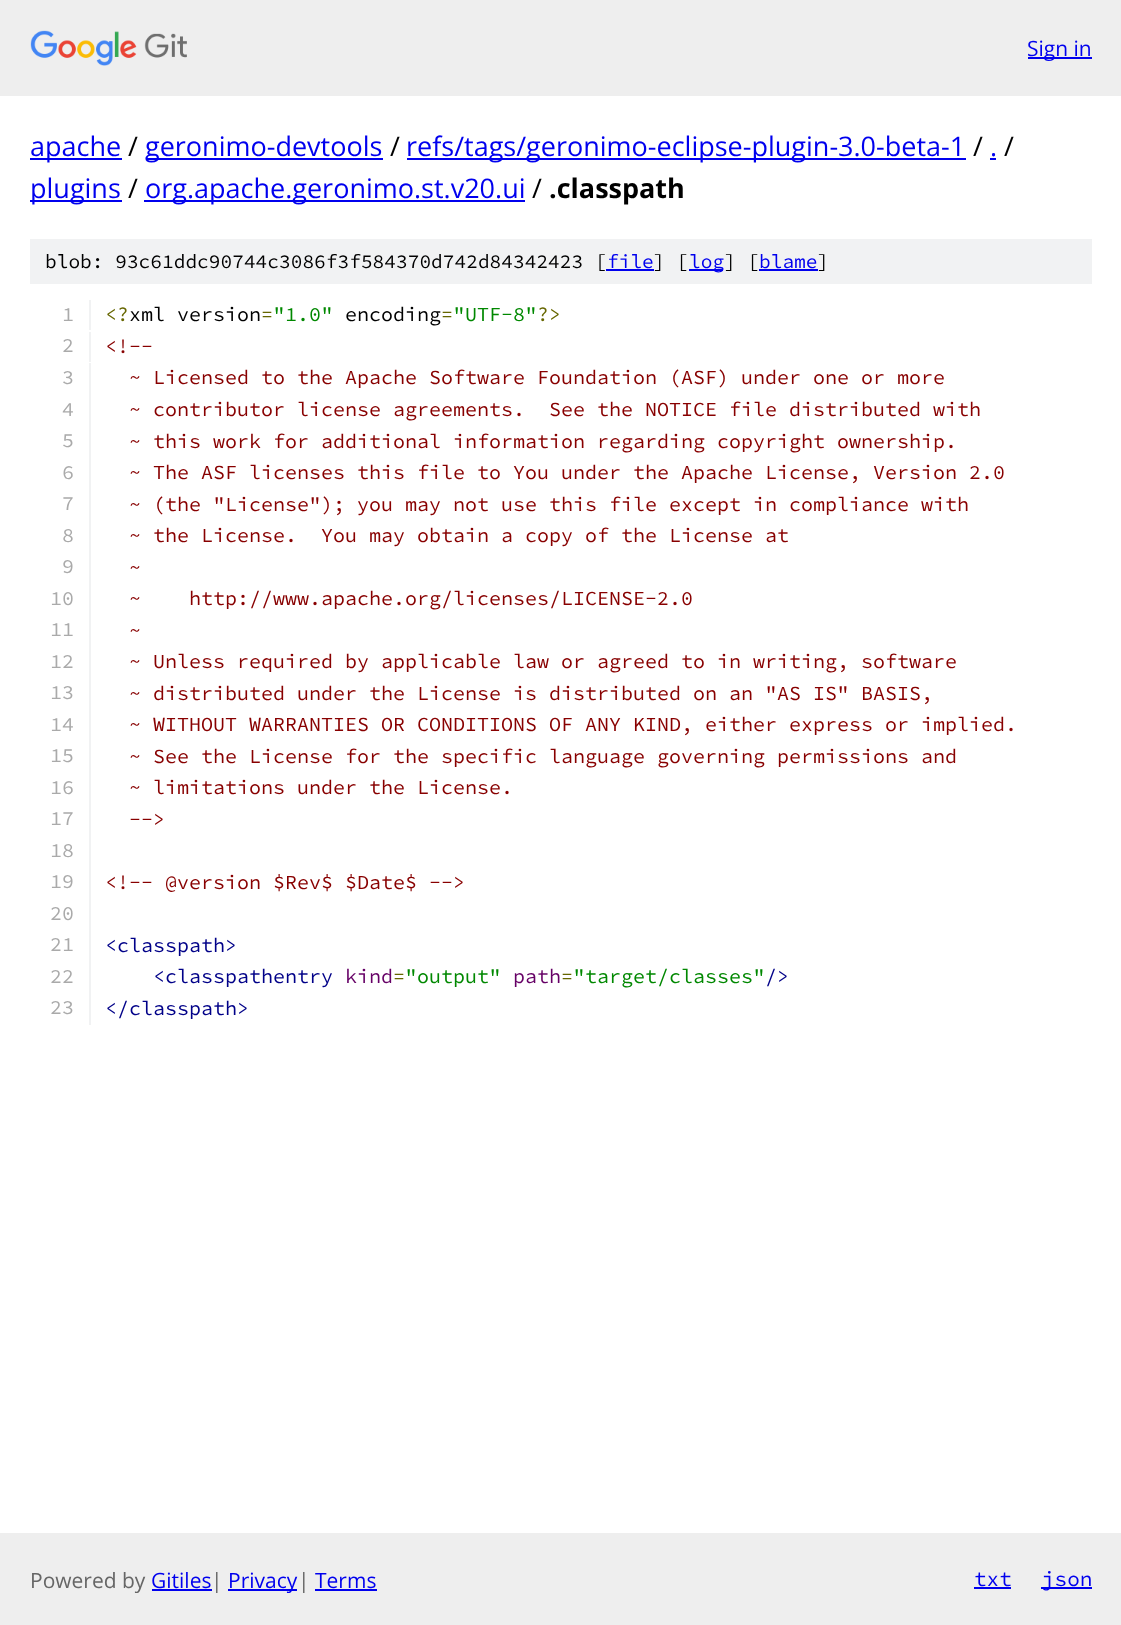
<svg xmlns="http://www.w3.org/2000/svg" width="1121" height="1625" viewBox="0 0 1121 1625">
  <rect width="100%" height="100%" fill="rgb(255,255,255)"/>
  <rect x="0" y="0" width="1121" height="96" fill="rgb(238,238,238)"/>
  <image x="30" y="30" width="157" height="36" href="pic1.png"/>
  <rect x="1028" y="57" width="64" height="2" fill="rgb(0,0,238)"/>
  <text x="1027" y="56" font-family="Open Sans" font-size="21" fill="rgb(0,0,238)">Sign in</text>
  <rect x="30" y="158" width="92" height="2" fill="rgb(0,0,238)"/>
  <text x="30" y="156" font-family="Open Sans" font-size="27" fill="rgb(0,0,238)">apache</text>
  <text x="128" y="156" font-family="Open Sans" font-size="27" fill="rgb(0,0,0)">/</text>
  <rect x="146" y="158" width="237" height="2" fill="rgb(0,0,238)"/>
  <text x="145" y="156" font-family="Open Sans" font-size="27" fill="rgb(0,0,238)">geronimo-devtools</text>
  <text x="390" y="156" font-family="Open Sans" font-size="27" fill="rgb(0,0,0)">/</text>
  <rect x="407" y="158" width="559" height="2" fill="rgb(0,0,238)"/>
  <text x="406" y="156" font-family="Open Sans" font-size="27" fill="rgb(0,0,238)">refs/tags/geronimo-eclipse-plugin-3.0-beta-1</text>
  <text x="973" y="156" font-family="Open Sans" font-size="27" fill="rgb(0,0,0)">/</text>
  <text x="990" y="156" font-family="Open Sans" font-size="27" fill="rgb(0,0,238)">.</text>
  <rect x="990" y="158" width="6" height="2" fill="rgb(0,0,238)"/>
  <text x="1004" y="156" font-family="Open Sans" font-size="27" fill="rgb(0,0,0)">/</text>
  <rect x="30" y="200" width="92" height="2" fill="rgb(0,0,238)"/>
  <text x="30" y="198" font-family="Open Sans" font-size="27" fill="rgb(0,0,238)">plugins</text>
  <text x="128" y="198" font-family="Open Sans" font-size="27" fill="rgb(0,0,0)">/</text>
  <rect x="144" y="200" width="381" height="2" fill="rgb(0,0,238)"/>
  <text x="145" y="198" font-family="Open Sans" font-size="27" fill="rgb(0,0,238)">org.apache.geronimo.st.v20.ui</text>
  <text x="532" y="198" font-family="Open Sans" font-size="27" fill="rgb(0,0,0)">/</text>
  <text x="549" y="198" font-family="Open Sans" font-size="27" font-weight="bold" fill="rgb(0,0,0)">.classpath</text>
  <rect x="30" y="239" width="1062" height="45" fill="rgb(241,242,243)"/>
  <text x="45" y="268" font-family="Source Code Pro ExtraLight" font-size="19.5" font-weight="200" fill="rgb(0,0,0)">blob: 93c61ddc90744c3086f3f584370d742d84342423 [</text>
  <text x="607" y="268" font-family="Source Code Pro ExtraLight" font-size="19.5" font-weight="200" fill="rgb(0,0,238)">file</text>
  <rect x="606" y="269" width="48" height="2" fill="rgb(0,0,238)"/>
  <text x="653" y="268" font-family="Source Code Pro ExtraLight" font-size="19.5" font-weight="200" fill="rgb(0,0,0)">] [</text>
  <rect x="689" y="269" width="34" height="2" fill="rgb(0,0,238)"/>
  <text x="689" y="268" font-family="Source Code Pro ExtraLight" font-size="19.5" font-weight="200" fill="rgb(0,0,238)">log</text>
  <text x="724" y="268" font-family="Source Code Pro ExtraLight" font-size="19.5" font-weight="200" fill="rgb(0,0,0)">] [</text>
  <text x="759" y="268" font-family="Source Code Pro ExtraLight" font-size="19.5" font-weight="200" fill="rgb(0,0,238)">blame</text>
  <rect x="759" y="269" width="59" height="2" fill="rgb(0,0,238)"/>
  <text x="817" y="268" font-family="Source Code Pro ExtraLight" font-size="19.5" font-weight="200" fill="rgb(0,0,0)">]</text>
  <rect x="89" y="300" width="2" height="30" fill="rgb(241,242,243)"/>
  <text x="62" y="321" font-family="Source Code Pro ExtraLight" font-size="20" font-weight="200" fill="rgb(170,170,170)">1</text>
  <text x="105" y="321" font-family="Source Code Pro ExtraLight" font-size="20" font-weight="200" fill="rgb(102,102,0)">&lt;?</text>
  <text x="129" y="321" font-family="Source Code Pro ExtraLight" font-size="20" font-weight="200" fill="rgb(0,0,0)">xml version</text>
  <text x="261" y="321" font-family="Source Code Pro ExtraLight" font-size="20" font-weight="200" fill="rgb(102,102,0)">=</text>
  <text x="273" y="321" font-family="Source Code Pro ExtraLight" font-size="20" font-weight="200" fill="rgb(0,136,0)">"1.0"</text>
  <text x="345" y="321" font-family="Source Code Pro ExtraLight" font-size="20" font-weight="200" fill="rgb(0,0,0)">encoding</text>
  <text x="441" y="321" font-family="Source Code Pro ExtraLight" font-size="20" font-weight="200" fill="rgb(102,102,0)">=</text>
  <text x="453" y="321" font-family="Source Code Pro ExtraLight" font-size="20" font-weight="200" fill="rgb(0,136,0)">"UTF-8"</text>
  <text x="537" y="321" font-family="Source Code Pro ExtraLight" font-size="20" font-weight="200" fill="rgb(102,102,0)">?&gt;</text>
  <rect x="89" y="332" width="2" height="30" fill="rgb(241,242,243)"/>
  <text x="62" y="352" font-family="Source Code Pro ExtraLight" font-size="20" font-weight="200" fill="rgb(170,170,170)">2</text>
  <text x="105" y="353" font-family="Source Code Pro ExtraLight" font-size="20" font-weight="200" fill="rgb(136,0,0)">&lt;!--</text>
  <rect x="89" y="363" width="2" height="662" fill="rgb(241,242,243)"/>
  <text x="62" y="384" font-family="Source Code Pro ExtraLight" font-size="20" font-weight="200" fill="rgb(170,170,170)">3</text>
  <text x="129" y="384" font-family="Source Code Pro ExtraLight" font-size="20" font-weight="200" fill="rgb(136,0,0)">~ Licensed to the Apache Software Foundation (ASF) under one or more</text>
  <text x="62" y="416" font-family="Source Code Pro ExtraLight" font-size="20" font-weight="200" fill="rgb(170,170,170)">4</text>
  <text x="129" y="416" font-family="Source Code Pro ExtraLight" font-size="20" font-weight="200" fill="rgb(136,0,0)" xml:space="preserve">~ contributor license agreements.  See the NOTICE file distributed with</text>
  <text x="62" y="447" font-family="Source Code Pro ExtraLight" font-size="20" font-weight="200" fill="rgb(170,170,170)">5</text>
  <text x="129" y="448" font-family="Source Code Pro ExtraLight" font-size="20" font-weight="200" fill="rgb(136,0,0)">~ this work for additional information regarding copyright ownership.</text>
  <text x="62" y="479" font-family="Source Code Pro ExtraLight" font-size="20" font-weight="200" fill="rgb(170,170,170)">6</text>
  <text x="129" y="479" font-family="Source Code Pro ExtraLight" font-size="20" font-weight="200" fill="rgb(136,0,0)">~ The ASF licenses this file to You under the Apache License, Version 2.0</text>
  <text x="62" y="510" font-family="Source Code Pro ExtraLight" font-size="20" font-weight="200" fill="rgb(170,170,170)">7</text>
  <text x="129" y="511" font-family="Source Code Pro ExtraLight" font-size="20" font-weight="200" fill="rgb(136,0,0)">~ (the "License"); you may not use this file except in compliance with</text>
  <text x="62" y="542" font-family="Source Code Pro ExtraLight" font-size="20" font-weight="200" fill="rgb(170,170,170)">8</text>
  <text x="129" y="542" font-family="Source Code Pro ExtraLight" font-size="20" font-weight="200" fill="rgb(136,0,0)" xml:space="preserve">~ the License.  You may obtain a copy of the License at</text>
  <text x="62" y="573" font-family="Source Code Pro ExtraLight" font-size="20" font-weight="200" fill="rgb(170,170,170)">9</text>
  <text x="129" y="574" font-family="Source Code Pro ExtraLight" font-size="20" font-weight="200" fill="rgb(136,0,0)">~</text>
  <text x="50" y="605" font-family="Source Code Pro ExtraLight" font-size="20" font-weight="200" fill="rgb(170,170,170)">10</text>
  <text x="129" y="605" font-family="Source Code Pro ExtraLight" font-size="20" font-weight="200" fill="rgb(136,0,0)" xml:space="preserve">~    http://www.apache.org/licenses/LICENSE-2.0</text>
  <text x="50" y="636" font-family="Source Code Pro ExtraLight" font-size="20" font-weight="200" fill="rgb(170,170,170)">11</text>
  <text x="129" y="637" font-family="Source Code Pro ExtraLight" font-size="20" font-weight="200" fill="rgb(136,0,0)">~</text>
  <text x="50" y="668" font-family="Source Code Pro ExtraLight" font-size="20" font-weight="200" fill="rgb(170,170,170)">12</text>
  <text x="129" y="668" font-family="Source Code Pro ExtraLight" font-size="20" font-weight="200" fill="rgb(136,0,0)">~ Unless required by applicable law or agreed to in writing, software</text>
  <text x="50" y="699" font-family="Source Code Pro ExtraLight" font-size="20" font-weight="200" fill="rgb(170,170,170)">13</text>
  <text x="129" y="700" font-family="Source Code Pro ExtraLight" font-size="20" font-weight="200" fill="rgb(136,0,0)">~ distributed under the License is distributed on an "AS IS" BASIS,</text>
  <text x="50" y="731" font-family="Source Code Pro ExtraLight" font-size="20" font-weight="200" fill="rgb(170,170,170)">14</text>
  <text x="129" y="731" font-family="Source Code Pro ExtraLight" font-size="20" font-weight="200" fill="rgb(136,0,0)">~ WITHOUT WARRANTIES OR CONDITIONS OF ANY KIND, either express or implied.</text>
  <text x="50" y="762" font-family="Source Code Pro ExtraLight" font-size="20" font-weight="200" fill="rgb(170,170,170)">15</text>
  <text x="129" y="763" font-family="Source Code Pro ExtraLight" font-size="20" font-weight="200" fill="rgb(136,0,0)">~ See the License for the specific language governing permissions and</text>
  <text x="50" y="794" font-family="Source Code Pro ExtraLight" font-size="20" font-weight="200" fill="rgb(170,170,170)">16</text>
  <text x="129" y="794" font-family="Source Code Pro ExtraLight" font-size="20" font-weight="200" fill="rgb(136,0,0)">~ limitations under the License.</text>
  <text x="50" y="825" font-family="Source Code Pro ExtraLight" font-size="20" font-weight="200" fill="rgb(170,170,170)">17</text>
  <text x="129" y="826" font-family="Source Code Pro ExtraLight" font-size="20" font-weight="200" fill="rgb(136,0,0)">--&gt;</text>
  <g font-family="Source Code Pro ExtraLight" font-size="20" font-weight="200" fill="rgb(170,170,170)">
    <text>
      <tspan x="50" y="857">18</tspan>
      <tspan x="50" y="888">19</tspan>
    </text>
  </g>
  <text x="105" y="889" font-family="Source Code Pro ExtraLight" font-size="20" font-weight="200" fill="rgb(136,0,0)">&lt;!-- @version $Rev$ $Date$ --&gt;</text>
  <g font-family="Source Code Pro ExtraLight" font-size="20" font-weight="200" fill="rgb(170,170,170)">
    <text>
      <tspan x="50" y="920">20</tspan>
      <tspan x="50" y="951">21</tspan>
    </text>
  </g>
  <text x="105" y="952" font-family="Source Code Pro ExtraLight" font-size="20" font-weight="200" fill="rgb(0,0,136)">&lt;classpath&gt;</text>
  <text x="50" y="983" font-family="Source Code Pro ExtraLight" font-size="20" font-weight="200" fill="rgb(170,170,170)">22</text>
  <text x="153" y="983" font-family="Source Code Pro ExtraLight" font-size="20" font-weight="200" fill="rgb(0,0,136)">&lt;classpathentry</text>
  <text x="345" y="983" font-family="Source Code Pro ExtraLight" font-size="20" font-weight="200" fill="rgb(102,0,102)">kind</text>
  <text x="393" y="983" font-family="Source Code Pro ExtraLight" font-size="20" font-weight="200" fill="rgb(102,102,0)">=</text>
  <text x="405" y="983" font-family="Source Code Pro ExtraLight" font-size="20" font-weight="200" fill="rgb(0,136,0)">"output"</text>
  <text x="513" y="983" font-family="Source Code Pro ExtraLight" font-size="20" font-weight="200" fill="rgb(102,0,102)">path</text>
  <text x="561" y="983" font-family="Source Code Pro ExtraLight" font-size="20" font-weight="200" fill="rgb(102,102,0)">=</text>
  <text x="573" y="983" font-family="Source Code Pro ExtraLight" font-size="20" font-weight="200" fill="rgb(0,136,0)">"target/classes"</text>
  <text x="765" y="983" font-family="Source Code Pro ExtraLight" font-size="20" font-weight="200" fill="rgb(0,0,136)">/&gt;</text>
  <text x="50" y="1014" font-family="Source Code Pro ExtraLight" font-size="20" font-weight="200" fill="rgb(170,170,170)">23</text>
  <text x="105" y="1015" font-family="Source Code Pro ExtraLight" font-size="20" font-weight="200" fill="rgb(0,0,136)">&lt;/classpath&gt;</text>
  <rect x="0" y="1533" width="1121" height="92" fill="rgb(238,238,238)"/>
  <text x="30" y="1588" font-family="Open Sans" font-size="21" fill="rgb(102,102,102)">Powered by</text>
  <text x="151" y="1588" font-family="Open Sans" font-size="21" fill="rgb(0,0,238)">Gitiles</text>
  <rect x="152" y="1589" width="60" height="2" fill="rgb(0,0,238)"/>
  <text x="211" y="1588" font-family="Open Sans" font-size="21" fill="rgb(102,102,102)">|</text>
  <rect x="228" y="1589" width="69" height="2" fill="rgb(0,0,238)"/>
  <text x="228" y="1588" font-family="Open Sans" font-size="21" fill="rgb(0,0,238)">Privacy</text>
  <text x="298" y="1588" font-family="Open Sans" font-size="21" fill="rgb(102,102,102)">|</text>
  <text x="315" y="1588" font-family="Open Sans" font-size="21" fill="rgb(0,0,238)">Terms</text>
  <rect x="315" y="1589" width="62" height="2" fill="rgb(0,0,238)"/>
  <text x="974" y="1586" font-family="Source Code Pro ExtraLight" font-size="21" font-weight="200" fill="rgb(0,0,238)">txt</text>
  <rect x="974" y="1587" width="37" height="2" fill="rgb(0,0,238)"/>
  <rect x="1041" y="1587" width="51" height="2" fill="rgb(0,0,238)"/>
  <text x="1042" y="1586" font-family="Source Code Pro ExtraLight" font-size="21" font-weight="200" fill="rgb(0,0,238)">json</text>
</svg>
